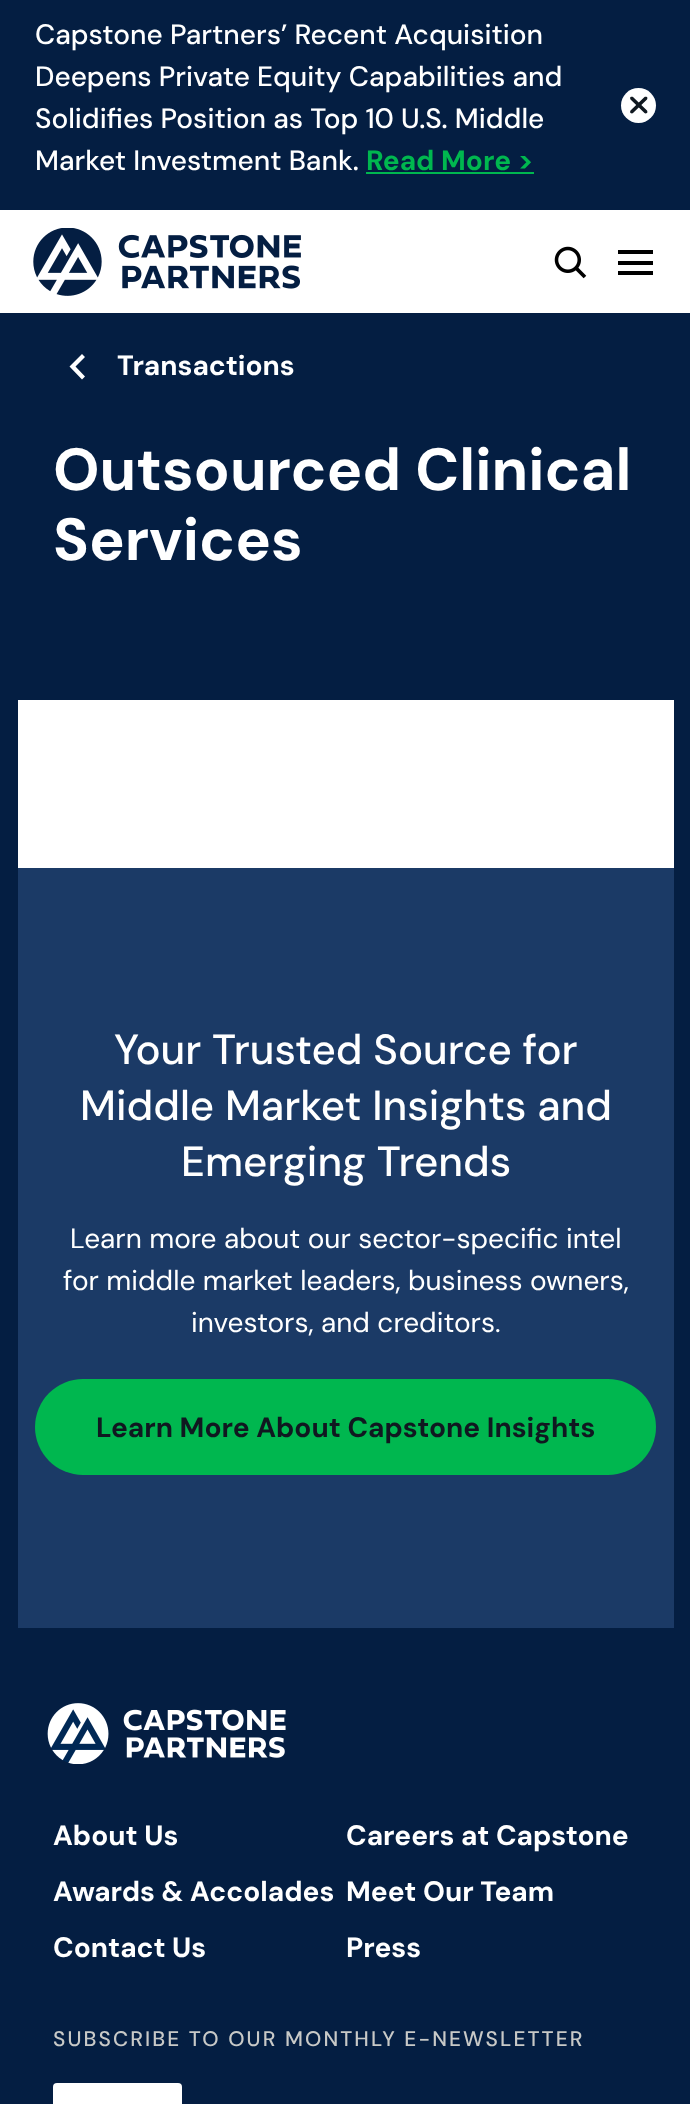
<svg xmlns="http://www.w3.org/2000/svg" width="690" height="2104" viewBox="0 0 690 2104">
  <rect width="100%" height="100%" fill="rgb(4,30,66)"/>
  <rect x="0" y="210" width="690" height="103" fill="rgb(255,255,255)"/>
  <g font-family="DM Sans" font-size="28" font-weight="500" fill="rgb(255,255,255)">
    <text>
      <tspan x="35" y="44">Capstone Partners’ Recent Acquisition</tspan>
      <tspan x="35" y="86">Deepens Private Equity Capabilities and</tspan>
      <tspan x="35" y="128">Solidifies Position as Top 10 U.S. Middle</tspan>
      <tspan x="35" y="170">Market Investment Bank.</tspan>
    </text>
  </g>
  <text x="366" y="170" font-family="DM Sans" font-size="28" font-weight="bold" fill="rgb(0,183,79)">Read More &gt;</text>
  <rect x="366" y="172" width="168" height="2" fill="rgb(0,183,79)"/>
  <circle cx="638.5" cy="105.5" r="17.5" fill="rgb(255,255,255)"/>
  <path d="M647 97C647.5 97.5 647.5 98.5 647 99.5L633 113C632.5 113.5 631.5 113.5 630.5 113C630 112.5 630 111.5 630.5 110.5L644.5 97C645 96.5 646 96.5 647 97Z" fill="rgb(16,24,32)"/>
  <path d="M630.5 97C631.5 96.5 632.5 96.5 633 97L647 110.5C647.5 111.5 647.5 112.5 647 113C646 113.5 645 113.5 644.5 113L630.5 99.5C630 98.5 630 97.5 630.5 97Z" fill="rgb(16,24,32)"/>
  <image x="33" y="228" width="268" height="68" href="pic1.png"/>
  <image x="554" y="246" width="33" height="33" href="pic2.png"/>
  <rect x="618" y="250" width="35" height="4" fill="rgb(0,0,0)"/>
  <rect x="618" y="261" width="35" height="4" fill="rgb(0,0,0)"/>
  <rect x="618" y="271" width="35" height="4" fill="rgb(0,0,0)"/>
  <path d="M85 357L82 354L69.5 366.5L82 379.5L85 376.5L75.5 366.5Z" fill="rgb(255,255,255)"/>
  <text x="117" y="375" font-family="DM Sans" font-size="28" font-weight="bold" fill="rgb(255,255,255)">Transactions</text>
  <g font-family="DM Sans" font-size="59.5" font-weight="bold" fill="rgb(255,255,255)">
    <text>
      <tspan x="53" y="490">Outsourced Clinical</tspan>
      <tspan x="53" y="560">Services</tspan>
    </text>
  </g>
  <rect x="18" y="700" width="656" height="168" fill="rgb(255,255,255)"/>
  <rect x="18" y="868" width="656" height="760" fill="rgb(27,58,102)"/>
  <g font-family="DM Sans" font-size="42" font-weight="500" fill="rgb(255,255,255)">
    <text x="114" y="1064">Your Trusted Source for</text>
    <text x="80" y="1120">Middle Market Insights and</text>
    <text x="181" y="1176">Emerging Trends</text>
  </g>
  <g font-family="DM Sans" font-size="28" fill="rgb(255,255,255)">
    <text x="70" y="1248">Learn more about our sector-specific intel</text>
    <text x="63" y="1290">for middle market leaders, business owners,</text>
    <text x="191" y="1332">investors, and creditors.</text>
  </g>
  <rect x="35" y="1379" width="621" height="96" rx="48" fill="rgb(0,183,79)"/>
  <text x="96" y="1437" font-family="DM Sans" font-size="28" font-weight="bold" fill="rgb(16,24,32)">Learn More About Capstone Insights</text>
  <image x="47" y="1703" width="239" height="61" href="pic3.png"/>
  <g font-family="DM Sans" font-size="28" font-weight="bold" fill="rgb(255,255,255)">
    <text x="53" y="1845">About Us</text>
    <text x="346" y="1845">Careers at Capstone</text>
    <text x="53" y="1901">Awards &amp; Accolades</text>
    <text x="346" y="1901">Meet Our Team</text>
    <text x="53" y="1957">Contact Us</text>
    <text x="346" y="1957">Press</text>
  </g>
  <text x="53" y="2046" font-family="DM Sans" font-size="21" font-weight="500" letter-spacing="2.1" fill="rgb(200,201,199)">SUBSCRIBE TO OUR MONTHLY E-NEWSLETTER</text>
  <rect x="53" y="2083" width="129" height="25" rx="4" fill="rgb(255,255,255)"/>
</svg>
